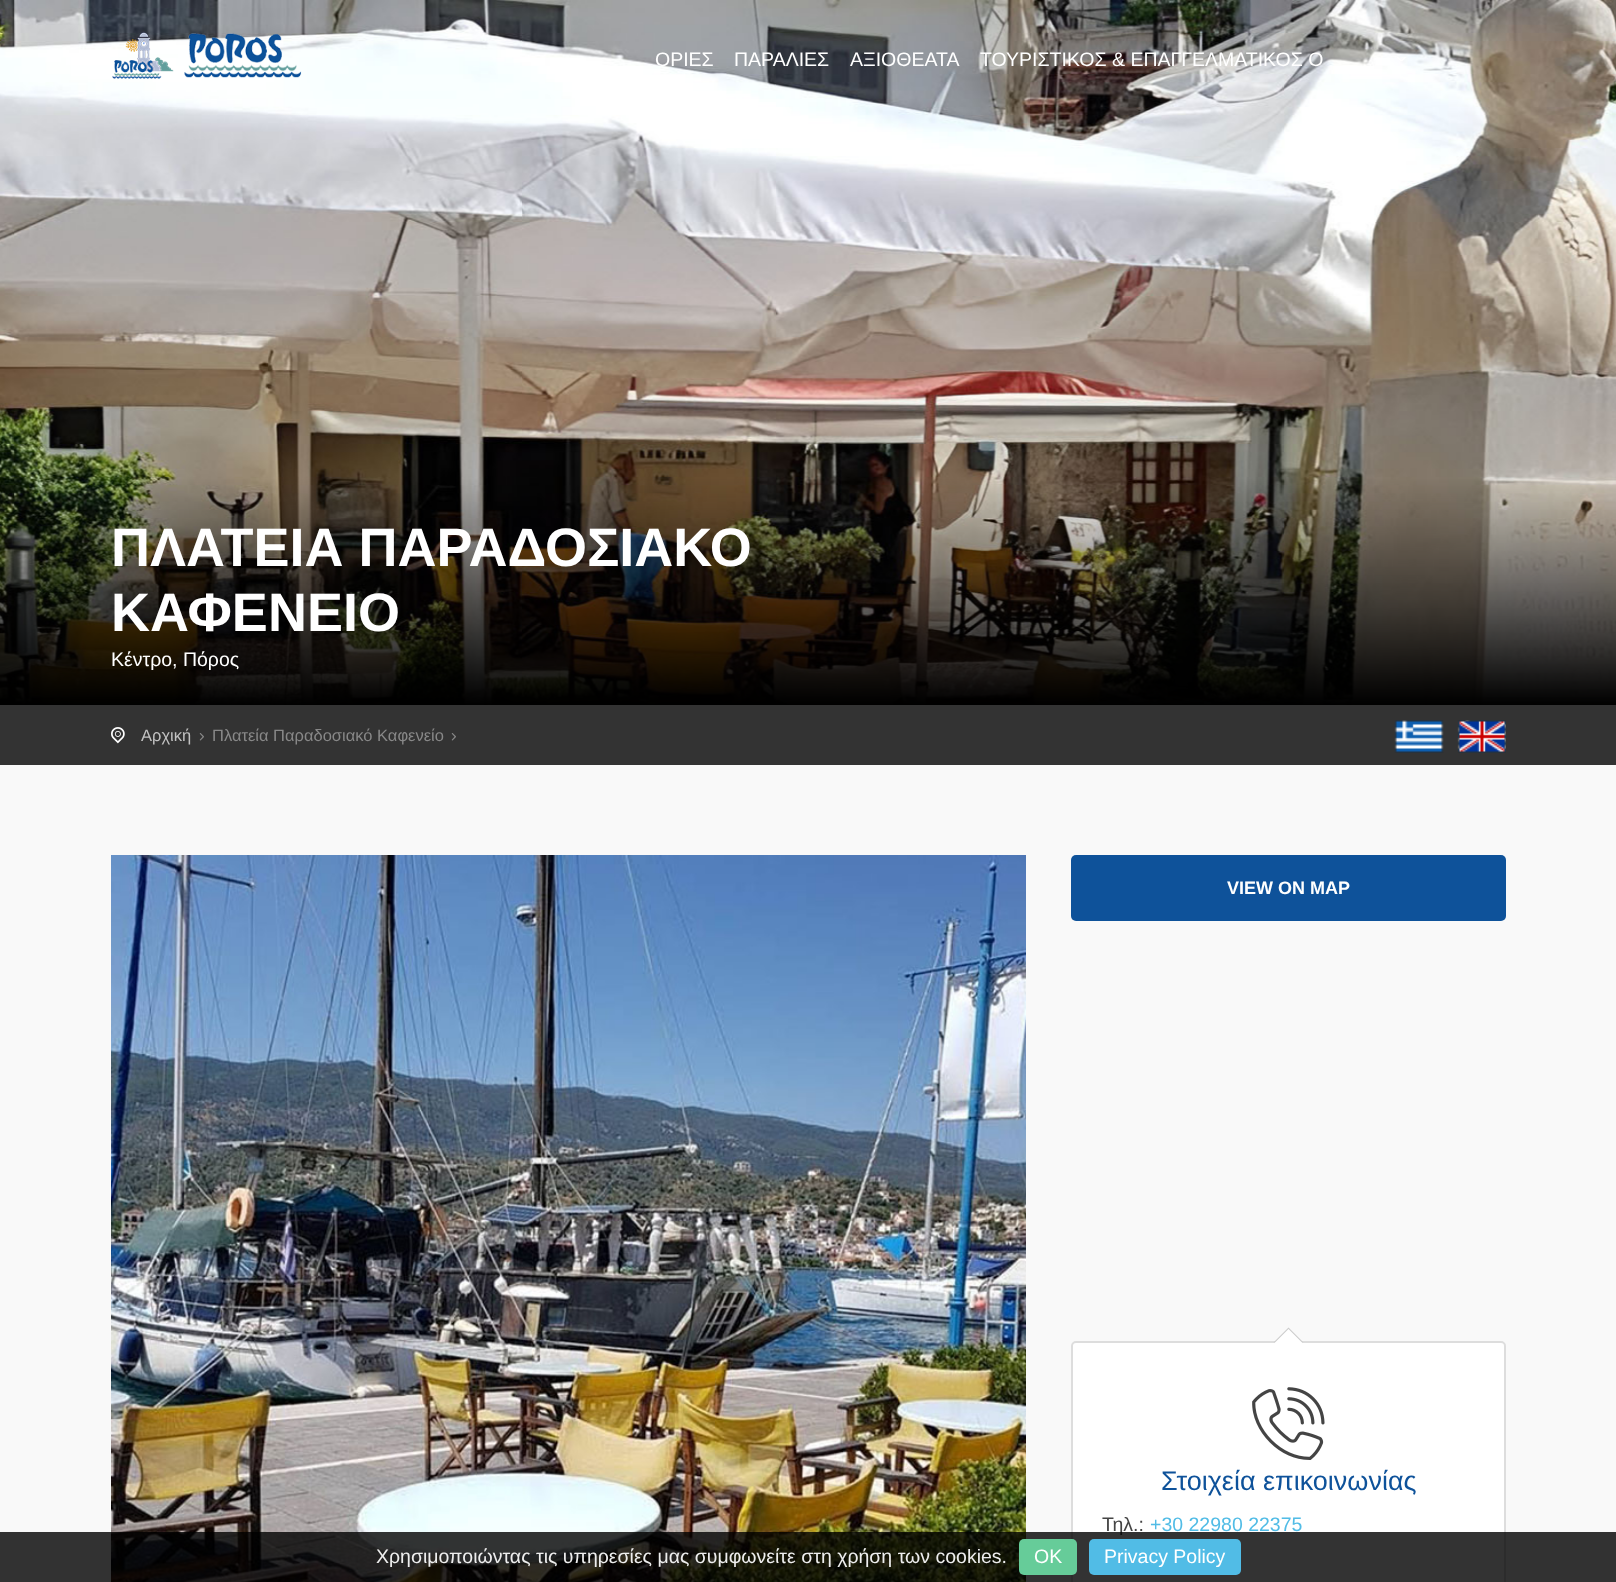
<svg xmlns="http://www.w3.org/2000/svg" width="1616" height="1582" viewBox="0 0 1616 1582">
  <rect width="100%" height="100%" fill="rgb(249,249,249)"/>
  <image x="0" y="0" width="1616" height="705" href="pic1.png"/>
  <image x="112" y="32" width="190" height="47" href="pic2.png"/>
  <g font-family="Liberation Sans" font-size="19.5" fill="rgb(255,255,255)">
    <text x="655" y="66">ΟΡΙΕΣ</text>
    <text x="734" y="66">ΠΑΡΑΛΙΕΣ</text>
    <text x="850" y="66">ΑΞΙΟΘΕΑΤΑ</text>
    <text x="980" y="66">ΤΟΥΡΙΣΤΙΚΟΣ &amp; ΕΠΑΓΓΕΛΜΑΤΙΚΟΣ Ο</text>
  </g>
  <image x="1397" y="57" width="9" height="4" href="pic3.png"/>
  <g font-family="Liberation Sans" font-size="54" font-weight="bold" fill="rgb(255,255,255)">
    <text>
      <tspan x="111" y="566">ΠΛΑΤΕΙΑ ΠΑΡΑΔΟΣΙΑΚΟ</tspan>
      <tspan x="111" y="631">ΚΑΦΕΝΕΙΟ</tspan>
    </text>
  </g>
  <text x="111" y="666" font-family="Liberation Sans" font-size="19.5" fill="rgb(255,255,255)">Κέντρο, Πόρος</text>
  <rect x="0" y="705" width="1616" height="60" fill="rgb(51,51,51)"/>
  <image x="111" y="727" width="14" height="17" href="pic4.png"/>
  <text x="141" y="741" font-family="Liberation Sans" font-size="16.5" fill="rgb(194,194,194)">Αρχική</text>
  <image x="199" y="733" width="5" height="8" href="pic5.png"/>
  <text x="212" y="741" font-family="Liberation Sans" font-size="16.5" fill="rgb(136,136,136)">Πλατεία Παραδοσιακό Καφενείο</text>
  <image x="451" y="733" width="5" height="8" href="pic5.png"/>
  <image x="1394" y="720" width="50" height="33" href="pic6.png"/>
  <image x="1457" y="720" width="49" height="33" href="pic7.png"/>
  <image x="111" y="855" width="915" height="727" href="pic8.png"/>
  <rect x="1071" y="855" width="435" height="66" rx="5" fill="rgb(14,82,154)"/>
  <text x="1227" y="894" font-family="Liberation Sans" font-size="18" font-weight="bold" fill="rgb(255,255,255)">VIEW ON MAP</text>
  <rect x="1072" y="1342" width="433" height="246" rx="4" fill="rgb(255,255,255)" stroke="rgb(221,221,221)" stroke-width="2"/>
  <path d="M1303.5 1342.5H1273.5L1288.5 1327.5Z" fill="rgb(204,204,204)"/>
  <path d="M1303.5 1344H1273.5L1288.5 1329Z" fill="rgb(255,255,255)"/>
  <image x="1252" y="1387" width="73" height="73" href="pic9.png"/>
  <text x="1161" y="1490" font-family="Liberation Sans" font-size="27" fill="rgb(14,82,154)">Στοιχεία επικοινωνίας</text>
  <text x="1102" y="1531" font-family="Liberation Sans" font-size="19.5" fill="rgb(68,68,68)">Τηλ.:</text>
  <text x="1150" y="1531" font-family="Liberation Sans" font-size="19.5" fill="rgb(81,188,230)">+30 22980 22375</text>
  <rect x="0" y="1532" width="1616" height="50" fill="rgba(0,0,0,0.8)"/>
  <text x="376" y="1563" font-family="Liberation Sans" font-size="19.5" fill="rgb(238,238,238)">Χρησιμοποιώντας τις υπηρεσίες μας συμφωνείτε στη χρήση των cookies.</text>
  <rect x="1019" y="1539" width="58" height="36" rx="5" fill="rgb(102,204,153)"/>
  <text x="1034" y="1563" font-family="Liberation Sans" font-size="19.5" fill="rgb(255,255,255)">OK</text>
  <rect x="1089" y="1539" width="152" height="36" rx="5" fill="rgb(81,188,230)"/>
  <text x="1104" y="1563" font-family="Liberation Sans" font-size="19.5" fill="rgb(255,255,255)">Privacy Policy</text>
</svg>
